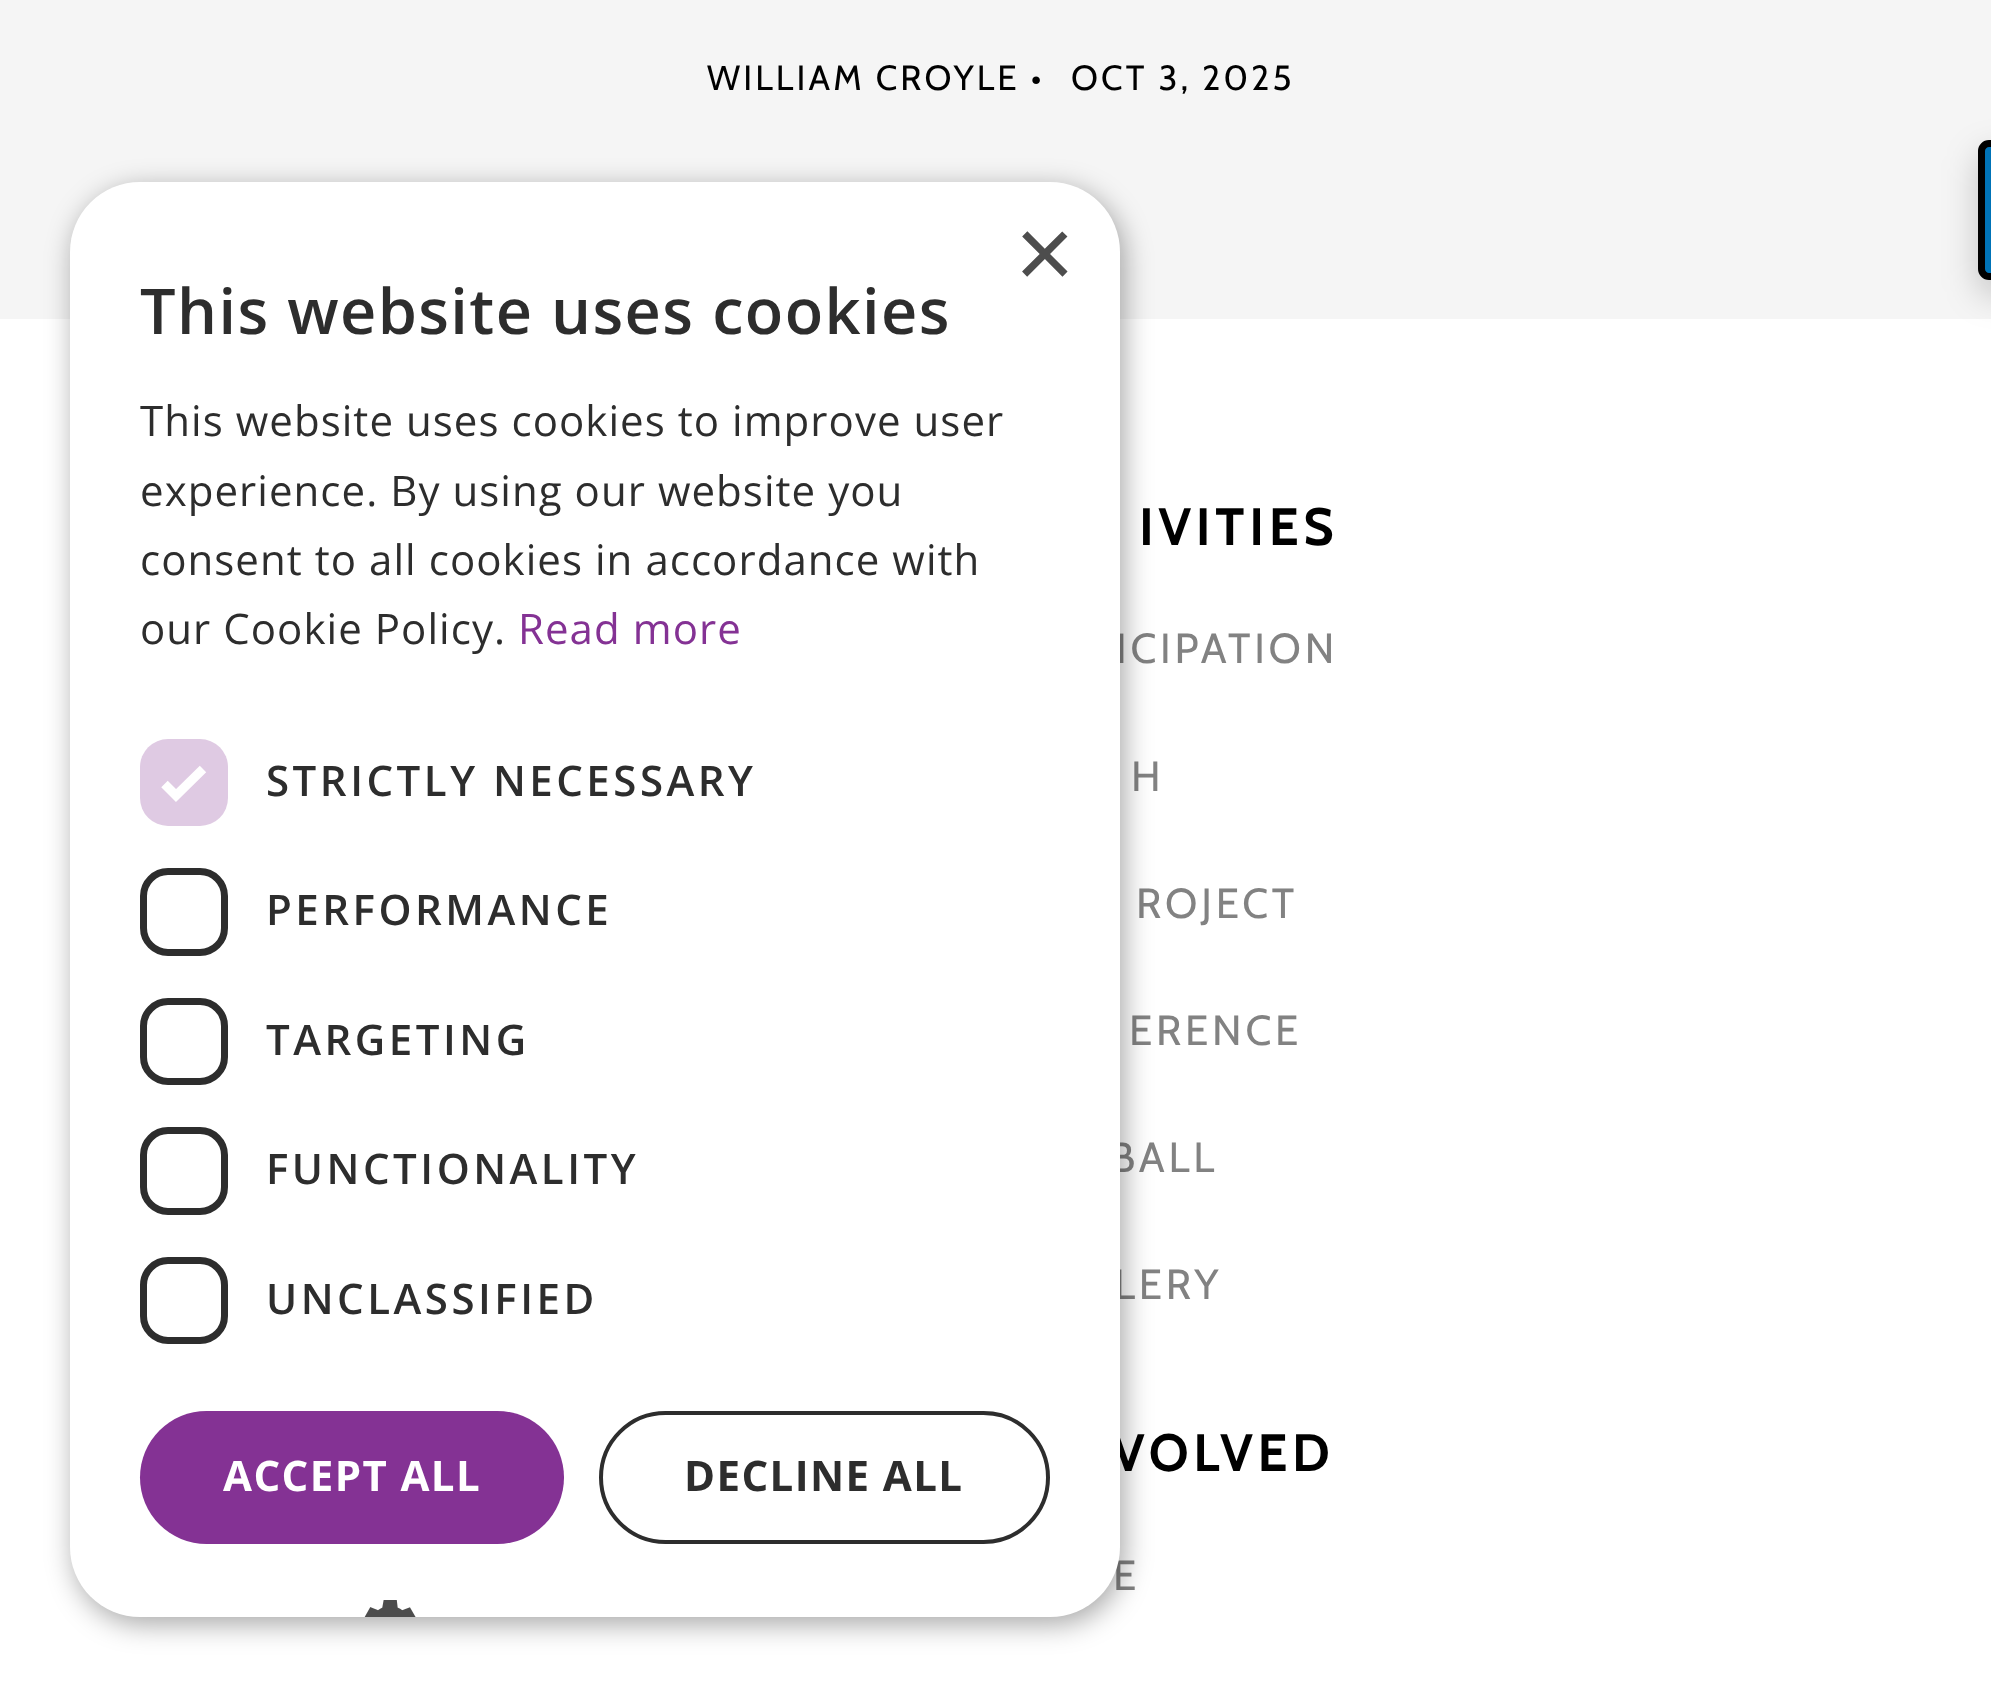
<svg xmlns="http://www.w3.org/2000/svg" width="1991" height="1684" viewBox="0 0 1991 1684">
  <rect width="100%" height="100%" fill="rgb(255,255,255)"/>
  <rect x="0" y="0" width="1991" height="319" fill="rgb(245,245,245)"/>
  <g font-family="Cabin" font-size="35" letter-spacing="3.1" fill="rgb(0,0,0)">
    <text x="707" y="90">WILLIAM CROYLE •</text>
    <text x="1071" y="90">OCT 3, 2025</text>
  </g>
  <text x="1139" y="545" font-family="Cabin" font-size="52.5" font-weight="bold" letter-spacing="4.75" fill="rgb(0,0,0)">IVITIES</text>
  <g font-family="Cabin" font-size="42" letter-spacing="3.75" fill="rgb(130,130,130)">
    <text x="1116" y="663">ICIPATION</text>
    <text x="1131" y="791">H</text>
    <text x="1136" y="918">ROJECT</text>
    <text x="1129" y="1045">ERENCE</text>
    <text x="1110" y="1172">BALL</text>
    <text x="1114" y="1299">LERY</text>
  </g>
  <text x="1112" y="1471" font-family="Cabin" font-size="52.5" font-weight="bold" letter-spacing="4.75" fill="rgb(0,0,0)">VOLVED</text>
  <text x="1113" y="1590" font-family="Cabin" font-size="42" letter-spacing="3.75" fill="rgb(130,130,130)">E</text>
  <rect x="1978" y="154" width="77" height="140" rx="11" fill="rgba(0,0,0,0.2)" filter="blur(17.5px)"/>
  <path d="M1989 143.5H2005.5V276.5H1989C1985 276.5 1981.5 273 1981.5 269V151C1981.5 147 1985 143.5 1989 143.5Z" fill="rgb(0,115,183)" stroke="rgb(0,0,0)" stroke-width="7"/>
  <rect x="74" y="189" width="1050" height="1435" rx="70" fill="rgba(0,0,0,0.35)" filter="blur(14px)"/>
  <rect x="70" y="182" width="1050" height="1435" rx="70" fill="rgb(255,255,255)"/>
  <text x="1015" y="288" font-family="Liberation Sans" font-size="102" fill="rgb(77,77,77)">×</text>
  <text x="140" y="334" font-family="Open Sans" font-size="63" font-weight="600" letter-spacing="1.4" fill="rgb(45,45,45)">This website uses cookies</text>
  <g font-family="Open Sans" font-size="42" letter-spacing="1.05" fill="rgb(45,45,45)">
    <text>
      <tspan x="140" y="436">This website uses cookies to improve user</tspan>
      <tspan x="140" y="506">experience. By using our website you</tspan>
      <tspan x="140" y="575">consent to all cookies in accordance with</tspan>
      <tspan x="140" y="644">our Cookie Policy.</tspan>
    </text>
  </g>
  <text x="518" y="644" font-family="Open Sans" font-size="42" letter-spacing="1.05" fill="rgb(132,50,148)">Read more</text>
  <rect x="140" y="739" width="88" height="87" rx="28" fill="rgb(223,202,227)"/>
  <path d="M164.5 784L176 795.5L203 769" fill="none" stroke="rgb(255,255,255)" stroke-width="9.2"/>
  <text x="266" y="796" font-family="Open Sans" font-size="42" font-weight="600" letter-spacing="3.5" fill="rgb(45,45,45)">STRICTLY NECESSARY</text>
  <rect x="143.5" y="871.5" width="81" height="81" rx="24.5" fill="none" stroke="rgb(45,45,45)" stroke-width="7"/>
  <text x="266" y="925" font-family="Open Sans" font-size="42" font-weight="600" letter-spacing="3.5" fill="rgb(45,45,45)">PERFORMANCE</text>
  <rect x="143.5" y="1001.5" width="81" height="80" rx="24.5" fill="none" stroke="rgb(45,45,45)" stroke-width="7"/>
  <text x="266" y="1055" font-family="Open Sans" font-size="42" font-weight="600" letter-spacing="3.5" fill="rgb(45,45,45)">TARGETING</text>
  <rect x="143.5" y="1130.5" width="81" height="81" rx="24.5" fill="none" stroke="rgb(45,45,45)" stroke-width="7"/>
  <text x="266" y="1184" font-family="Open Sans" font-size="42" font-weight="600" letter-spacing="3.5" fill="rgb(45,45,45)">FUNCTIONALITY</text>
  <rect x="143.5" y="1260.5" width="81" height="80" rx="24.5" fill="none" stroke="rgb(45,45,45)" stroke-width="7"/>
  <text x="266" y="1314" font-family="Open Sans" font-size="42" font-weight="600" letter-spacing="3.5" fill="rgb(45,45,45)">UNCLASSIFIED</text>
  <rect x="140" y="1411" width="424" height="133" rx="66.5" fill="rgb(132,50,148)"/>
  <text x="223" y="1491" font-family="Open Sans" font-size="42" font-weight="bold" letter-spacing="1.4" fill="rgb(255,255,255)">ACCEPT ALL</text>
  <rect x="601" y="1413" width="447" height="129" rx="64.5" fill="none" stroke="rgb(45,45,45)" stroke-width="4"/>
  <text x="684" y="1491" font-family="Open Sans" font-size="42" font-weight="bold" letter-spacing="1.4" fill="rgb(45,45,45)">DECLINE ALL</text>
  <image x="364" y="1600" width="52" height="17" href="pic1.png"/>
</svg>
